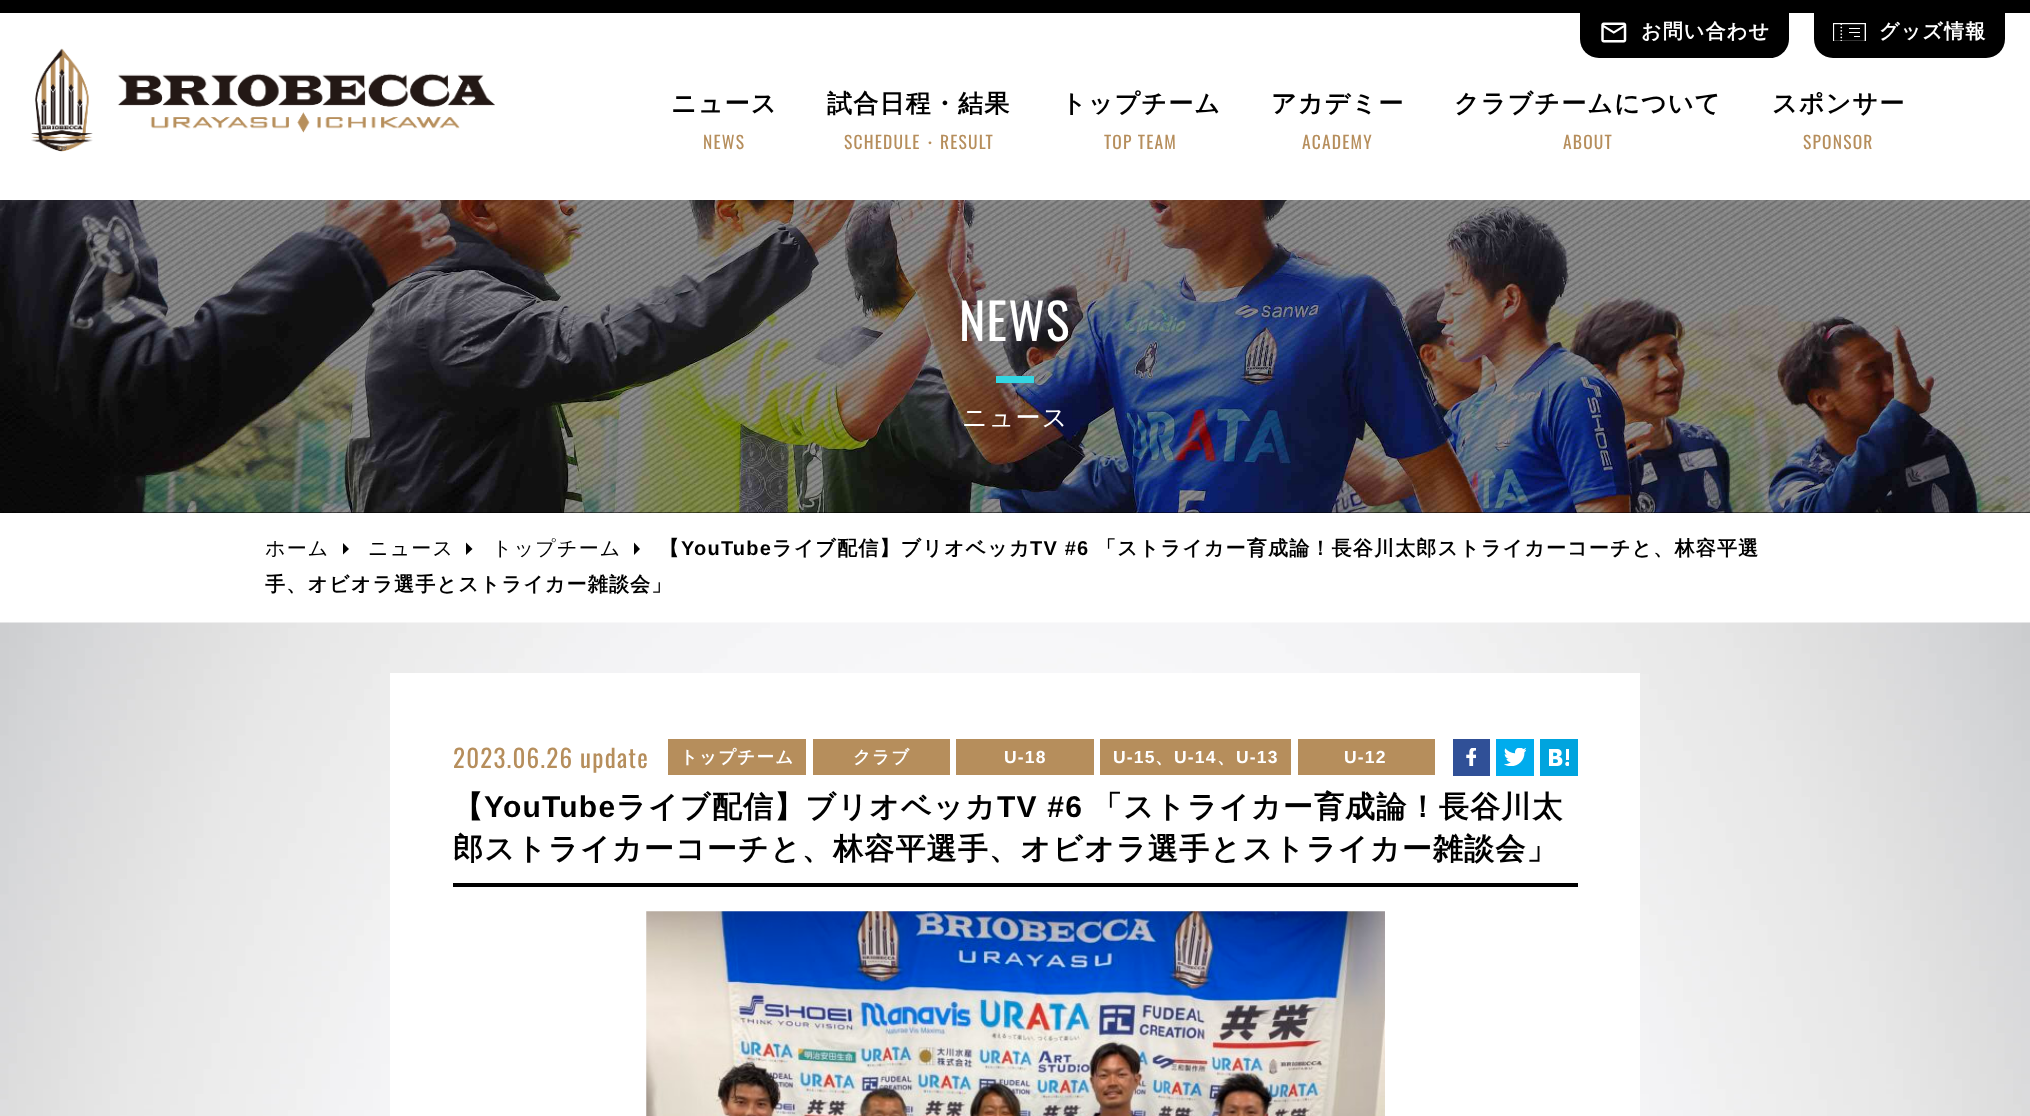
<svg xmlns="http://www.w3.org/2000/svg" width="2030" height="1116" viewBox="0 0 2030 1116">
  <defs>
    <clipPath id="clip1"><rect x="343" y="543" width="6" height="12"/></clipPath>
  </defs>
  <rect width="100%" height="100%" fill="rgb(255,255,255)"/>
  <rect x="0" y="0" width="2030" height="13" fill="rgb(0,0,0)"/>
  <path d="M1580 13H1789V39C1789 49.5 1780.5 58 1770 58H1599C1588.5 58 1580 49.5 1580 39Z" fill="rgb(0,0,0)"/>
  <image x="1601" y="22" width="26" height="21" href="pic1.png"/>
  <text x="1641" y="38" font-family="WenQuanYi Zen Hei" font-size="20" font-weight="bold" letter-spacing="1.2" fill="rgb(255,255,255)">お問い合わせ</text>
  <path d="M1814 13H2005V39C2005 49.5 1996.5 58 1986 58H1833C1822.5 58 1814 49.5 1814 39Z" fill="rgb(0,0,0)"/>
  <image x="1833" y="23" width="33" height="18" href="pic2.png"/>
  <text x="1879" y="38" font-family="WenQuanYi Zen Hei" font-size="20" font-weight="bold" letter-spacing="1.2" fill="rgb(255,255,255)">グッズ情報</text>
  <image x="31" y="48" width="464" height="104" href="pic3.png"/>
  <text x="671" y="112" font-family="WenQuanYi Zen Hei" font-size="25" font-weight="bold" letter-spacing="1.2" fill="rgb(0,0,0)">ニュース</text>
  <text x="703" y="149" font-family="Oswald" font-size="17.5" letter-spacing="1.2" fill="rgb(182,142,92)">NEWS</text>
  <text x="827" y="112" font-family="WenQuanYi Zen Hei" font-size="25" font-weight="bold" letter-spacing="1.2" fill="rgb(0,0,0)">試合日程・結果</text>
  <text x="844" y="149" font-family="Oswald" font-size="17.5" letter-spacing="1.2" fill="rgb(182,142,92)">SCHEDULE</text>
  <text x="921" y="149" font-family="WenQuanYi Zen Hei" font-size="17.5" font-weight="500" letter-spacing="1.2" fill="rgb(182,142,92)">・</text>
  <text x="940" y="149" font-family="Oswald" font-size="17.5" letter-spacing="1.2" fill="rgb(182,142,92)">RESULT</text>
  <text x="1061" y="112" font-family="WenQuanYi Zen Hei" font-size="25" font-weight="bold" letter-spacing="1.2" fill="rgb(0,0,0)">トップチーム</text>
  <text x="1104" y="149" font-family="Oswald" font-size="17.5" letter-spacing="1.2" fill="rgb(182,142,92)">TOP TEAM</text>
  <text x="1271" y="112" font-family="WenQuanYi Zen Hei" font-size="25" font-weight="bold" letter-spacing="1.2" fill="rgb(0,0,0)">アカデミー</text>
  <text x="1302" y="149" font-family="Oswald" font-size="17.5" letter-spacing="1.2" fill="rgb(182,142,92)">ACADEMY</text>
  <text x="1454" y="112" font-family="WenQuanYi Zen Hei" font-size="25" font-weight="bold" letter-spacing="1.2" fill="rgb(0,0,0)">クラブチームについて</text>
  <text x="1563" y="149" font-family="Oswald" font-size="17.5" letter-spacing="1.2" fill="rgb(182,142,92)">ABOUT</text>
  <text x="1772" y="112" font-family="WenQuanYi Zen Hei" font-size="25" font-weight="bold" letter-spacing="1.2" fill="rgb(0,0,0)">スポンサー</text>
  <text x="1803" y="149" font-family="Oswald" font-size="17.5" letter-spacing="1.2" fill="rgb(182,142,92)">SPONSOR</text>
  <rect x="0" y="512" width="2030" height="1" fill="rgb(0,0,0)"/>
  <image x="0" y="200" width="2030" height="313" href="pic4.png"/>
  <text x="959" y="341" font-family="Oswald" font-size="50" letter-spacing="1.2" fill="rgb(255,255,255)">NEWS</text>
  <rect x="996" y="376" width="38" height="7" fill="rgb(51,214,226)"/>
  <text x="962" y="426" font-family="WenQuanYi Zen Hei" font-size="25" font-weight="500" letter-spacing="1.2" fill="rgb(255,255,255)">ニュース</text>
  <text x="265" y="555" font-family="WenQuanYi Zen Hei" font-size="20" font-weight="500" letter-spacing="1.2" fill="rgb(0,0,0)">ホーム</text>
  <g clip-path="url(#clip1)">
    <path d="M349 549L342.5 542.5V555Z" fill="rgb(0,0,0)"/>
  </g>
  <text x="368" y="555" font-family="WenQuanYi Zen Hei" font-size="20" font-weight="500" letter-spacing="1.2" fill="rgb(0,0,0)">ニュース</text>
  <path d="M472.5 549L466 542.5V555Z" fill="rgb(0,0,0)"/>
  <text x="492" y="555" font-family="WenQuanYi Zen Hei" font-size="20" font-weight="500" letter-spacing="1.2" fill="rgb(0,0,0)">トップチーム</text>
  <path d="M640 549L634 542.5V555Z" fill="rgb(0,0,0)"/>
  <text x="659" y="555" font-family="WenQuanYi Zen Hei" font-size="20" font-weight="bold" letter-spacing="1.2" fill="rgb(0,0,0)">【</text>
  <text x="681" y="555" font-family="Liberation Sans" font-size="20" font-weight="bold" letter-spacing="1.2" fill="rgb(0,0,0)">YouTube</text>
  <text x="772" y="555" font-family="WenQuanYi Zen Hei" font-size="20" font-weight="bold" letter-spacing="1.2" fill="rgb(0,0,0)">ライブ配信】ブリオベッカ</text>
  <text x="1030" y="555" font-family="Liberation Sans" font-size="20" font-weight="bold" letter-spacing="1.2" fill="rgb(0,0,0)">TV #6</text>
  <g font-family="WenQuanYi Zen Hei" font-size="20" font-weight="bold" letter-spacing="1.2" fill="rgb(0,0,0)">
    <text x="1096" y="555">「ストライカー育成論！長谷川太郎ストライカーコーチと、林容平選</text>
    <text x="265" y="591">手、オビオラ選手とストライカー雑談会」</text>
  </g>
  <image x="0" y="622" width="2030" height="494" href="pic5.png"/>
  <rect x="390" y="673" width="1250" height="443" fill="rgb(255,255,255)"/>
  <rect x="453" y="883" width="1125" height="4" fill="rgb(0,0,0)"/>
  <text x="453" y="768" font-family="Oswald" font-size="25" letter-spacing="1.2" fill="rgb(182,142,92)">2023.06.26 update</text>
  <rect x="668" y="739" width="138" height="36" fill="rgb(182,142,92)"/>
  <text x="680" y="763" font-family="WenQuanYi Zen Hei" font-size="17.5" font-weight="bold" letter-spacing="1.2" fill="rgb(255,255,255)">トップチーム</text>
  <rect x="813" y="739" width="137" height="36" fill="rgb(182,142,92)"/>
  <text x="853" y="763" font-family="WenQuanYi Zen Hei" font-size="17.5" font-weight="bold" letter-spacing="1.2" fill="rgb(255,255,255)">クラブ</text>
  <rect x="956" y="739" width="138" height="36" fill="rgb(182,142,92)"/>
  <text x="1004" y="763" font-family="Liberation Sans" font-size="17.5" font-weight="bold" letter-spacing="1.2" fill="rgb(255,255,255)">U-18</text>
  <rect x="1100" y="739" width="191" height="36" fill="rgb(182,142,92)"/>
  <text x="1113" y="763" font-family="Liberation Sans" font-size="17.5" font-weight="bold" letter-spacing="1.2" fill="rgb(255,255,255)">U-15</text>
  <text x="1155" y="763" font-family="WenQuanYi Zen Hei" font-size="17.5" font-weight="bold" letter-spacing="1.2" fill="rgb(255,255,255)">、</text>
  <text x="1174" y="763" font-family="Liberation Sans" font-size="17.5" font-weight="bold" letter-spacing="1.2" fill="rgb(255,255,255)">U-14</text>
  <text x="1217" y="763" font-family="WenQuanYi Zen Hei" font-size="17.5" font-weight="bold" letter-spacing="1.2" fill="rgb(255,255,255)">、</text>
  <text x="1236" y="763" font-family="Liberation Sans" font-size="17.5" font-weight="bold" letter-spacing="1.2" fill="rgb(255,255,255)">U-13</text>
  <rect x="1298" y="739" width="137" height="36" fill="rgb(182,142,92)"/>
  <text x="1344" y="763" font-family="Liberation Sans" font-size="17.5" font-weight="bold" letter-spacing="1.2" fill="rgb(255,255,255)">U-12</text>
  <rect x="1453" y="739" width="37" height="37" fill="rgb(48,80,151)"/>
  <image x="1466" y="748" width="10" height="18" href="pic6.png"/>
  <rect x="1496" y="739" width="38" height="37" fill="rgb(0,172,237)"/>
  <image x="1504" y="748" width="22" height="18" href="pic7.png"/>
  <rect x="1540" y="739" width="38" height="37" fill="rgb(0,164,222)"/>
  <image x="1549" y="749" width="20" height="17" href="pic8.png"/>
  <text x="453" y="817" font-family="WenQuanYi Zen Hei" font-size="30" font-weight="bold" letter-spacing="1.2" fill="rgb(0,0,0)">【</text>
  <text x="484" y="817" font-family="Liberation Sans" font-size="30" font-weight="bold" letter-spacing="1.2" fill="rgb(0,0,0)">YouTube</text>
  <text x="616" y="817" font-family="WenQuanYi Zen Hei" font-size="30" font-weight="bold" letter-spacing="1.2" fill="rgb(0,0,0)">ライブ配信】ブリオベッカ</text>
  <text x="997" y="817" font-family="Liberation Sans" font-size="30" font-weight="bold" letter-spacing="1.2" fill="rgb(0,0,0)">TV #6</text>
  <g font-family="WenQuanYi Zen Hei" font-size="30" font-weight="bold" letter-spacing="1.2" fill="rgb(0,0,0)">
    <text x="1092" y="817">「ストライカー育成論！長谷川太</text>
    <text x="453" y="859">郎ストライカーコーチと、林容平選手、オビオラ選手とストライカー雑談会」</text>
  </g>
  <image x="646" y="911" width="739" height="205" href="pic9.png"/>
</svg>
